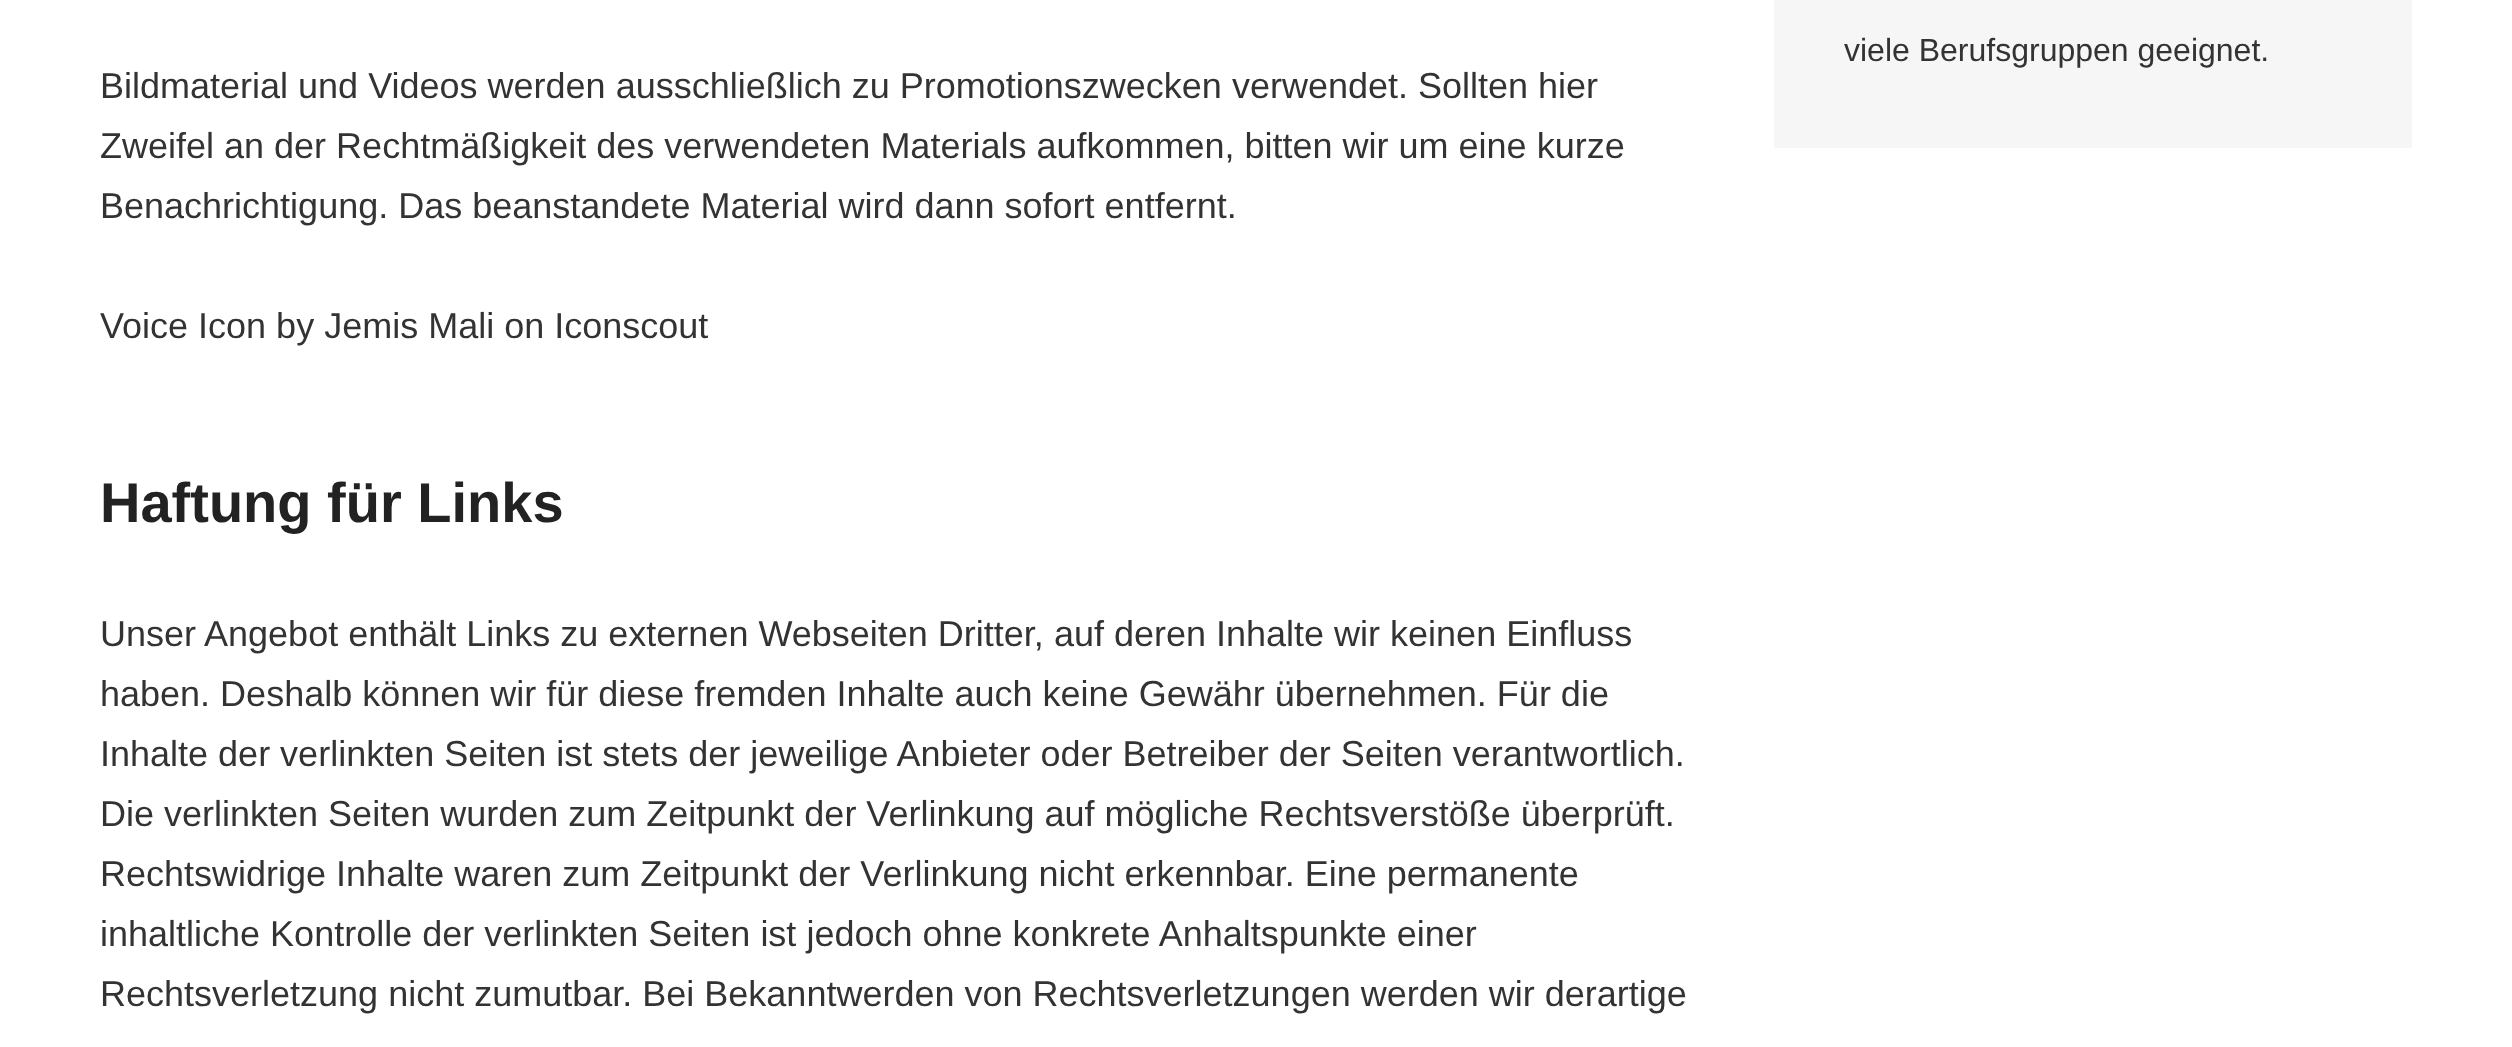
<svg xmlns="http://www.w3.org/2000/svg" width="2512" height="1047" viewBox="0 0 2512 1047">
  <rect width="100%" height="100%" fill="rgb(255,255,255)"/>
  <rect x="1774" y="0" width="638" height="148" fill="rgb(246,246,246)"/>
  <text x="1844" y="61" font-family="Liberation Sans" font-size="32" fill="rgb(51,51,51)">viele Berufsgruppen geeignet.</text>
  <g font-family="Liberation Sans" font-size="36" fill="rgb(51,51,51)">
    <text>
      <tspan x="100" y="98">Bildmaterial und Videos werden ausschließlich zu Promotionszwecken verwendet. Sollten hier</tspan>
      <tspan x="100" y="158">Zweifel an der Rechtmäßigkeit des verwendeten Materials aufkommen, bitten wir um eine kurze</tspan>
      <tspan x="100" y="218">Benachrichtigung. Das beanstandete Material wird dann sofort entfernt.</tspan>
    </text>
    <text x="100" y="338">Voice Icon by Jemis Mali on Iconscout</text>
  </g>
  <text x="100" y="522" font-family="Liberation Sans" font-size="56" font-weight="bold" fill="rgb(34,34,34)">Haftung für Links</text>
  <g font-family="Liberation Sans" font-size="36" fill="rgb(51,51,51)">
    <text>
      <tspan x="100" y="646">Unser Angebot enthält Links zu externen Webseiten Dritter, auf deren Inhalte wir keinen Einfluss</tspan>
      <tspan x="100" y="706">haben. Deshalb können wir für diese fremden Inhalte auch keine Gewähr übernehmen. Für die</tspan>
      <tspan x="100" y="766">Inhalte der verlinkten Seiten ist stets der jeweilige Anbieter oder Betreiber der Seiten verantwortlich.</tspan>
      <tspan x="100" y="826">Die verlinkten Seiten wurden zum Zeitpunkt der Verlinkung auf mögliche Rechtsverstöße überprüft.</tspan>
      <tspan x="100" y="886">Rechtswidrige Inhalte waren zum Zeitpunkt der Verlinkung nicht erkennbar. Eine permanente</tspan>
      <tspan x="100" y="946">inhaltliche Kontrolle der verlinkten Seiten ist jedoch ohne konkrete Anhaltspunkte einer</tspan>
      <tspan x="100" y="1006">Rechtsverletzung nicht zumutbar. Bei Bekanntwerden von Rechtsverletzungen werden wir derartige</tspan>
    </text>
  </g>
</svg>
